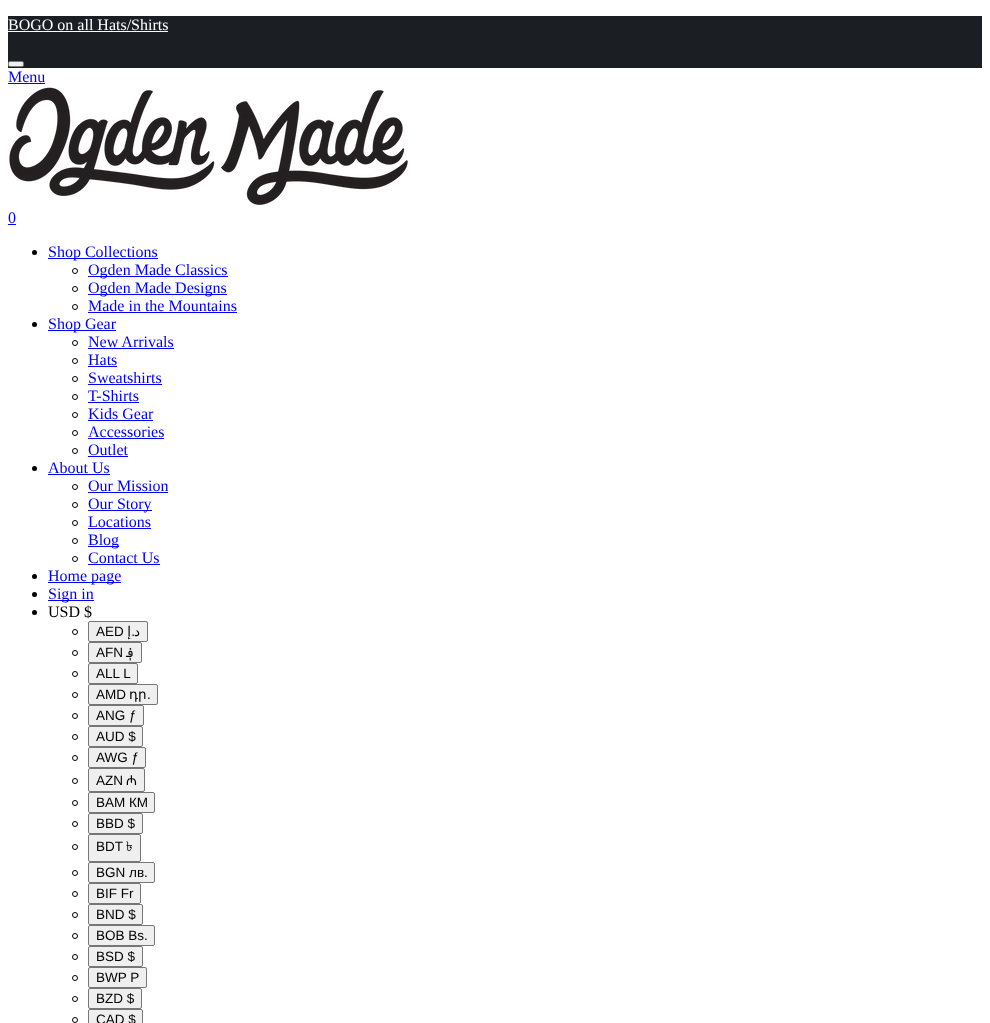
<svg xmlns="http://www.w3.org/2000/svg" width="990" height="1023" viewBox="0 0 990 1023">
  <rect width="100%" height="100%" fill="rgb(255,255,255)"/>
  <rect x="8" y="16" width="974" height="52" fill="rgb(27,31,35)"/>
  <text x="8" y="30" font-family="Liberation Serif" font-size="16" fill="rgb(255,255,255)">BOGO on all Hats/Shirts</text>
  <rect x="8" y="31" width="160" height="1" fill="rgb(255,255,255)"/>
  <rect x="8.5" y="61.5" width="15" height="5" rx="1.5" fill="rgb(239,239,239)" stroke="rgb(118,118,118)"/>
  <text x="8" y="82" font-family="Liberation Serif" font-size="16" fill="rgb(0,0,238)">Menu</text>
  <rect x="8" y="83" width="37" height="1" fill="rgb(0,0,238)"/>
  <image x="9" y="87" width="399" height="118" href="pic1.png"/>
  <text x="8" y="223" font-family="Liberation Serif" font-size="16" fill="rgb(0,0,238)">0</text>
  <rect x="8" y="224" width="8" height="1" fill="rgb(0,0,238)"/>
  <circle cx="34.5" cy="252.5" r="2.5" fill="rgb(0,0,0)"/>
  <rect x="48" y="258" width="110" height="1" fill="rgb(0,0,238)"/>
  <text x="48" y="257" font-family="Liberation Serif" font-size="16" fill="rgb(0,0,238)">Shop Collections</text>
  <circle cx="75" cy="271" r="2.5" fill="none" stroke="rgb(0,0,0)"/>
  <rect x="88" y="276" width="140" height="1" fill="rgb(0,0,238)"/>
  <text x="88" y="275" font-family="Liberation Serif" font-size="16" fill="rgb(0,0,238)">Ogden Made Classics</text>
  <circle cx="75" cy="289" r="2.5" fill="none" stroke="rgb(0,0,0)"/>
  <rect x="88" y="294" width="139" height="1" fill="rgb(0,0,238)"/>
  <text x="88" y="293" font-family="Liberation Serif" font-size="16" fill="rgb(0,0,238)">Ogden Made Designs</text>
  <circle cx="75" cy="307" r="2.5" fill="none" stroke="rgb(0,0,0)"/>
  <text x="88" y="311" font-family="Liberation Serif" font-size="16" fill="rgb(0,0,238)">Made in the Mountains</text>
  <rect x="88" y="312" width="149" height="1" fill="rgb(0,0,238)"/>
  <circle cx="34.5" cy="324.5" r="2.5" fill="rgb(0,0,0)"/>
  <rect x="48" y="330" width="68" height="1" fill="rgb(0,0,238)"/>
  <text x="48" y="329" font-family="Liberation Serif" font-size="16" fill="rgb(0,0,238)">Shop Gear</text>
  <circle cx="75" cy="343" r="2.5" fill="none" stroke="rgb(0,0,0)"/>
  <text x="88" y="347" font-family="Liberation Serif" font-size="16" fill="rgb(0,0,238)">New Arrivals</text>
  <rect x="88" y="348" width="86" height="1" fill="rgb(0,0,238)"/>
  <circle cx="75" cy="361" r="2.5" fill="none" stroke="rgb(0,0,0)"/>
  <text x="88" y="365" font-family="Liberation Serif" font-size="16" fill="rgb(0,0,238)">Hats</text>
  <rect x="88" y="366" width="29" height="1" fill="rgb(0,0,238)"/>
  <circle cx="75" cy="379" r="2.5" fill="none" stroke="rgb(0,0,0)"/>
  <text x="88" y="383" font-family="Liberation Serif" font-size="16" fill="rgb(0,0,238)">Sweatshirts</text>
  <rect x="88" y="384" width="74" height="1" fill="rgb(0,0,238)"/>
  <circle cx="75" cy="397" r="2.5" fill="none" stroke="rgb(0,0,0)"/>
  <text x="88" y="401" font-family="Liberation Serif" font-size="16" fill="rgb(0,0,238)">T-Shirts</text>
  <rect x="88" y="402" width="51" height="1" fill="rgb(0,0,238)"/>
  <circle cx="75" cy="415" r="2.5" fill="none" stroke="rgb(0,0,0)"/>
  <text x="88" y="419" font-family="Liberation Serif" font-size="16" fill="rgb(0,0,238)">Kids Gear</text>
  <rect x="88" y="420" width="65" height="1" fill="rgb(0,0,238)"/>
  <circle cx="75" cy="433" r="2.5" fill="none" stroke="rgb(0,0,0)"/>
  <text x="88" y="437" font-family="Liberation Serif" font-size="16" fill="rgb(0,0,238)">Accessories</text>
  <rect x="88" y="438" width="76" height="1" fill="rgb(0,0,238)"/>
  <circle cx="75" cy="451" r="2.5" fill="none" stroke="rgb(0,0,0)"/>
  <text x="88" y="455" font-family="Liberation Serif" font-size="16" fill="rgb(0,0,238)">Outlet</text>
  <rect x="88" y="456" width="40" height="1" fill="rgb(0,0,238)"/>
  <circle cx="34.5" cy="468.5" r="2.5" fill="rgb(0,0,0)"/>
  <text x="48" y="473" font-family="Liberation Serif" font-size="16" fill="rgb(0,0,238)">About Us</text>
  <rect x="48" y="474" width="62" height="1" fill="rgb(0,0,238)"/>
  <circle cx="75" cy="487" r="2.5" fill="none" stroke="rgb(0,0,0)"/>
  <text x="88" y="491" font-family="Liberation Serif" font-size="16" fill="rgb(0,0,238)">Our Mission</text>
  <rect x="88" y="492" width="80" height="1" fill="rgb(0,0,238)"/>
  <circle cx="75" cy="505" r="2.5" fill="none" stroke="rgb(0,0,0)"/>
  <rect x="88" y="510" width="64" height="1" fill="rgb(0,0,238)"/>
  <text x="88" y="509" font-family="Liberation Serif" font-size="16" fill="rgb(0,0,238)">Our Story</text>
  <circle cx="75" cy="523" r="2.5" fill="none" stroke="rgb(0,0,0)"/>
  <text x="88" y="527" font-family="Liberation Serif" font-size="16" fill="rgb(0,0,238)">Locations</text>
  <rect x="88" y="528" width="63" height="1" fill="rgb(0,0,238)"/>
  <circle cx="75" cy="541" r="2.5" fill="none" stroke="rgb(0,0,0)"/>
  <rect x="88" y="546" width="31" height="1" fill="rgb(0,0,238)"/>
  <text x="88" y="545" font-family="Liberation Serif" font-size="16" fill="rgb(0,0,238)">Blog</text>
  <circle cx="75" cy="559" r="2.5" fill="none" stroke="rgb(0,0,0)"/>
  <text x="88" y="563" font-family="Liberation Serif" font-size="16" fill="rgb(0,0,238)">Contact Us</text>
  <rect x="88" y="564" width="72" height="1" fill="rgb(0,0,238)"/>
  <circle cx="34.5" cy="576.5" r="2.5" fill="rgb(0,0,0)"/>
  <rect x="48" y="582" width="73" height="1" fill="rgb(0,0,238)"/>
  <text x="48" y="581" font-family="Liberation Serif" font-size="16" fill="rgb(0,0,238)">Home page</text>
  <circle cx="34.5" cy="594.5" r="2.5" fill="rgb(0,0,0)"/>
  <rect x="48" y="600" width="46" height="1" fill="rgb(0,0,238)"/>
  <text x="48" y="599" font-family="Liberation Serif" font-size="16" fill="rgb(0,0,238)">Sign in</text>
  <circle cx="34.5" cy="612.5" r="2.5" fill="rgb(0,0,0)"/>
  <text x="48" y="617" font-family="Liberation Serif" font-size="16" fill="rgb(0,0,0)">USD $</text>
  <circle cx="75" cy="632" r="2.5" fill="none" stroke="rgb(0,0,0)"/>
  <rect x="88.5" y="621.5" width="59" height="20" rx="1.5" fill="rgb(239,239,239)" stroke="rgb(118,118,118)"/>
  <text x="96" y="636" font-family="Liberation Sans" font-size="13.5" fill="rgb(0,0,0)">AED</text>
  <text x="131" y="636" font-family="DejaVu Sans" font-size="13.5" direction="rtl" fill="rgb(0,0,0)">إ</text>
  <text x="135" y="636" font-family="Liberation Sans" font-size="13.5" direction="rtl" fill="rgb(0,0,0)">.</text>
  <text x="140" y="636" font-family="DejaVu Sans" font-size="13.5" direction="rtl" fill="rgb(0,0,0)">د</text>
  <circle cx="75" cy="653" r="2.5" fill="none" stroke="rgb(0,0,0)"/>
  <rect x="88.5" y="642.5" width="53" height="20" rx="1.5" fill="rgb(239,239,239)" stroke="rgb(118,118,118)"/>
  <text x="96" y="657" font-family="Liberation Sans" font-size="13.5" fill="rgb(0,0,0)">AFN</text>
  <text x="134" y="657" font-family="Cascadia Code" font-size="13.5" direction="rtl" fill="rgb(0,0,0)">؋</text>
  <circle cx="75" cy="674" r="2.5" fill="none" stroke="rgb(0,0,0)"/>
  <rect x="88.5" y="663.5" width="49" height="20" rx="1.5" fill="rgb(239,239,239)" stroke="rgb(118,118,118)"/>
  <text x="96" y="678" font-family="Liberation Sans" font-size="13.5" fill="rgb(0,0,0)">ALL L</text>
  <circle cx="75" cy="695" r="2.5" fill="none" stroke="rgb(0,0,0)"/>
  <rect x="88.5" y="684.5" width="69" height="20" rx="1.5" fill="rgb(239,239,239)" stroke="rgb(118,118,118)"/>
  <text x="96" y="699" font-family="Liberation Sans" font-size="13.5" fill="rgb(0,0,0)">AMD</text>
  <text x="129" y="699" font-family="DejaVu Sans" font-size="13.5" fill="rgb(0,0,0)">դր</text>
  <text x="147" y="699" font-family="Liberation Sans" font-size="13.5" fill="rgb(0,0,0)">.</text>
  <circle cx="75" cy="716" r="2.5" fill="none" stroke="rgb(0,0,0)"/>
  <rect x="88.5" y="705.5" width="55" height="20" rx="1.5" fill="rgb(239,239,239)" stroke="rgb(118,118,118)"/>
  <text x="96" y="720" font-family="Liberation Sans" font-size="13.5" fill="rgb(0,0,0)">ANG ƒ</text>
  <circle cx="75" cy="737" r="2.5" fill="none" stroke="rgb(0,0,0)"/>
  <rect x="88.5" y="726.5" width="54" height="20" rx="1.5" fill="rgb(239,239,239)" stroke="rgb(118,118,118)"/>
  <text x="96" y="741" font-family="Liberation Sans" font-size="13.5" fill="rgb(0,0,0)">AUD $</text>
  <circle cx="75" cy="758" r="2.5" fill="none" stroke="rgb(0,0,0)"/>
  <rect x="88.5" y="747.5" width="57" height="20" rx="1.5" fill="rgb(239,239,239)" stroke="rgb(118,118,118)"/>
  <text x="96" y="762" font-family="Liberation Sans" font-size="13.5" fill="rgb(0,0,0)">AWG ƒ</text>
  <circle cx="75" cy="781" r="2.5" fill="none" stroke="rgb(0,0,0)"/>
  <rect x="88.5" y="768.5" width="56" height="23" rx="1.5" fill="rgb(239,239,239)" stroke="rgb(118,118,118)"/>
  <text x="96" y="785" font-family="Liberation Sans" font-size="13.5" fill="rgb(0,0,0)">AZN</text>
  <text x="126" y="785" font-family="Noto Sans" font-size="13.5" fill="rgb(0,0,0)">₼</text>
  <circle cx="75" cy="803" r="2.5" fill="none" stroke="rgb(0,0,0)"/>
  <rect x="88.5" y="792.5" width="66" height="20" rx="1.5" fill="rgb(239,239,239)" stroke="rgb(118,118,118)"/>
  <text x="96" y="807" font-family="Liberation Sans" font-size="13.5" fill="rgb(0,0,0)">BAM КМ</text>
  <circle cx="75" cy="824" r="2.5" fill="none" stroke="rgb(0,0,0)"/>
  <rect x="88.5" y="813.5" width="54" height="20" rx="1.5" fill="rgb(239,239,239)" stroke="rgb(118,118,118)"/>
  <text x="96" y="828" font-family="Liberation Sans" font-size="13.5" fill="rgb(0,0,0)">BBD $</text>
  <circle cx="75" cy="847" r="2.5" fill="none" stroke="rgb(0,0,0)"/>
  <rect x="88.5" y="834.5" width="52" height="27" rx="1.5" fill="rgb(239,239,239)" stroke="rgb(118,118,118)"/>
  <text x="96" y="851" font-family="Liberation Sans" font-size="13.5" fill="rgb(0,0,0)">BDT</text>
  <text x="126" y="851" font-family="Lohit Bengali" font-size="13.5" fill="rgb(0,0,0)">৳</text>
  <circle cx="75" cy="873" r="2.5" fill="none" stroke="rgb(0,0,0)"/>
  <rect x="88.5" y="862.5" width="66" height="20" rx="1.5" fill="rgb(239,239,239)" stroke="rgb(118,118,118)"/>
  <text x="96" y="877" font-family="Liberation Sans" font-size="13.5" fill="rgb(0,0,0)">BGN лв.</text>
  <circle cx="75" cy="894" r="2.5" fill="none" stroke="rgb(0,0,0)"/>
  <rect x="88.5" y="883.5" width="52" height="20" rx="1.5" fill="rgb(239,239,239)" stroke="rgb(118,118,118)"/>
  <text x="96" y="898" font-family="Liberation Sans" font-size="13.5" fill="rgb(0,0,0)">BIF Fr</text>
  <circle cx="75" cy="915" r="2.5" fill="none" stroke="rgb(0,0,0)"/>
  <rect x="88.5" y="904.5" width="54" height="20" rx="1.5" fill="rgb(239,239,239)" stroke="rgb(118,118,118)"/>
  <text x="96" y="919" font-family="Liberation Sans" font-size="13.5" fill="rgb(0,0,0)">BND $</text>
  <circle cx="75" cy="936" r="2.5" fill="none" stroke="rgb(0,0,0)"/>
  <rect x="88.5" y="925.5" width="66" height="20" rx="1.5" fill="rgb(239,239,239)" stroke="rgb(118,118,118)"/>
  <text x="96" y="940" font-family="Liberation Sans" font-size="13.5" fill="rgb(0,0,0)">BOB Bs.</text>
  <circle cx="75" cy="957" r="2.5" fill="none" stroke="rgb(0,0,0)"/>
  <rect x="88.5" y="946.5" width="54" height="20" rx="1.5" fill="rgb(239,239,239)" stroke="rgb(118,118,118)"/>
  <text x="96" y="961" font-family="Liberation Sans" font-size="13.5" fill="rgb(0,0,0)">BSD $</text>
  <circle cx="75" cy="978" r="2.5" fill="none" stroke="rgb(0,0,0)"/>
  <rect x="88.5" y="967.5" width="58" height="20" rx="1.5" fill="rgb(239,239,239)" stroke="rgb(118,118,118)"/>
  <text x="96" y="982" font-family="Liberation Sans" font-size="13.5" fill="rgb(0,0,0)">BWP P</text>
  <circle cx="75" cy="999" r="2.5" fill="none" stroke="rgb(0,0,0)"/>
  <rect x="88.5" y="988.5" width="53" height="20" rx="1.5" fill="rgb(239,239,239)" stroke="rgb(118,118,118)"/>
  <text x="96" y="1003" font-family="Liberation Sans" font-size="13.5" fill="rgb(0,0,0)">BZD $</text>
  <circle cx="75" cy="1020" r="2.5" fill="none" stroke="rgb(0,0,0)"/>
  <rect x="88.5" y="1009.5" width="54" height="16" rx="1.5" fill="rgb(239,239,239)" stroke="rgb(118,118,118)"/>
  <text x="96" y="1024" font-family="Liberation Sans" font-size="13.5" fill="rgb(0,0,0)">CAD $</text>
</svg>
